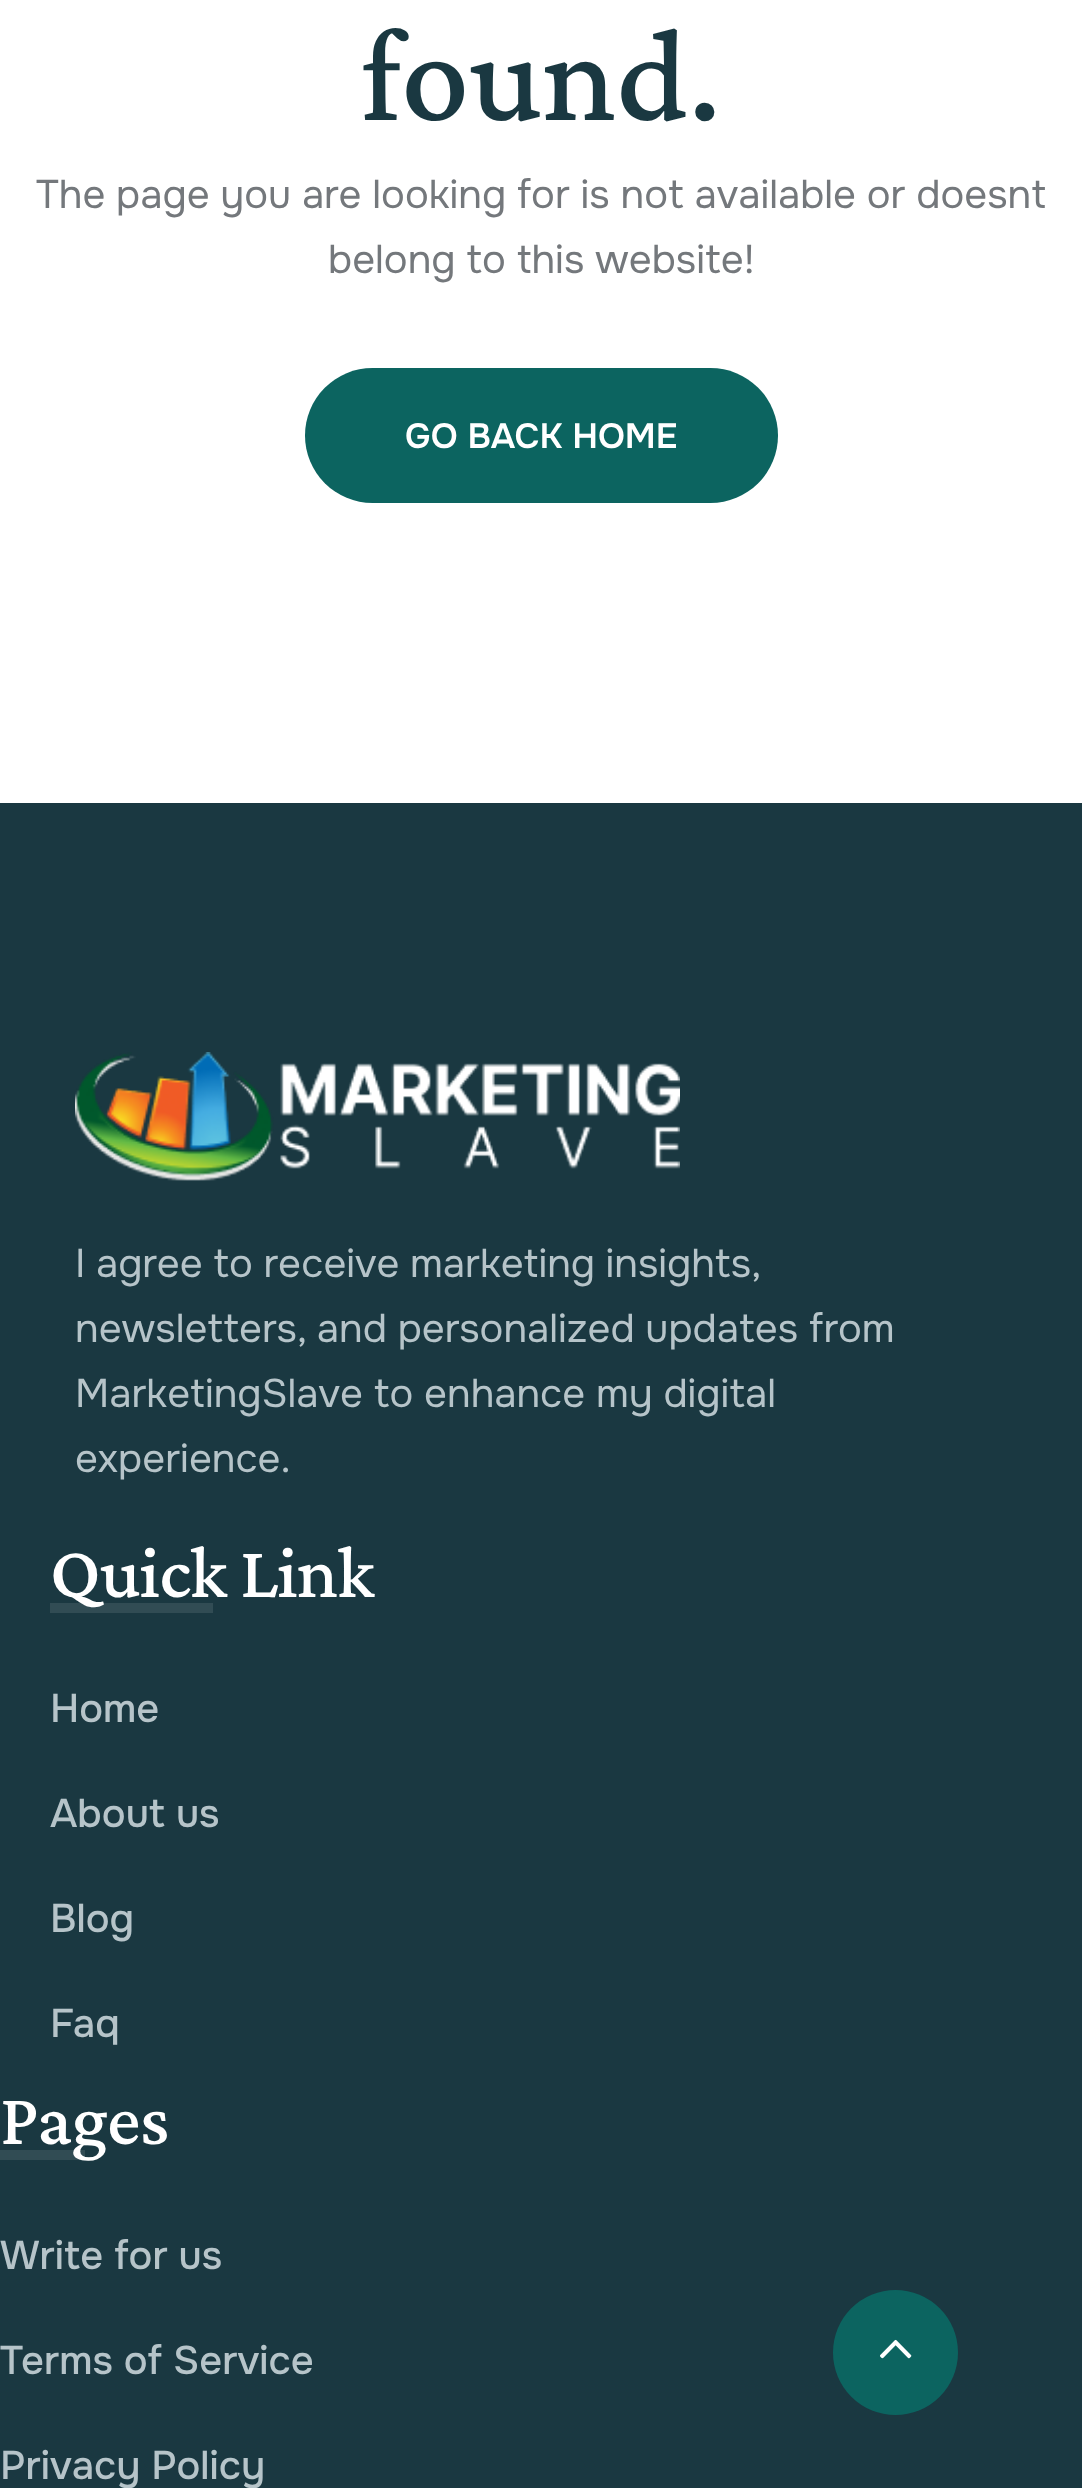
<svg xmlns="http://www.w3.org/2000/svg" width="1082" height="2488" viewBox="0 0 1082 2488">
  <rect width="100%" height="100%" fill="rgb(255,255,255)"/>
  <text x="361" y="120" font-family="Crimson Pro" font-size="135" font-weight="500" fill="rgb(26,56,65)">found.</text>
  <g font-family="Onest" font-size="40" fill="rgb(116,120,124)">
    <text x="36" y="208">The page you are looking for is not available or doesnt</text>
    <text x="328" y="273">belong to this website!</text>
  </g>
  <rect x="305" y="368" width="473" height="135" rx="67.5" fill="rgb(12,100,96)"/>
  <text x="405" y="448" font-family="Onest" font-size="35" font-weight="600" fill="rgb(255,255,255)">GO BACK HOME</text>
  <rect x="0" y="803" width="1082" height="1685" fill="rgb(26,56,65)"/>
  <image x="75" y="1052" width="605" height="129" href="pic1.png"/>
  <g font-family="Onest" font-size="40" fill="rgb(182,196,201)">
    <text>
      <tspan x="75" y="1277" word-spacing="-0.25">I agree to receive marketing insights,</tspan>
      <tspan x="75" y="1342">newsletters, and personalized updates from</tspan>
      <tspan x="75" y="1407">MarketingSlave to enhance my digital</tspan>
      <tspan x="75" y="1472">experience.</tspan>
    </text>
  </g>
  <text x="50" y="1597" font-family="Crimson Pro" font-size="75" font-weight="500" letter-spacing="-0.75" fill="rgb(255,255,255)">Quick Link</text>
  <rect x="50" y="1603" width="163" height="10" fill="rgba(255,255,255,0.1)"/>
  <g font-family="Onest" font-size="40" font-weight="500" fill="rgb(182,196,201)">
    <text x="50" y="1722">Home</text>
    <text x="50" y="1827">About us</text>
    <text x="50" y="1932">Blog</text>
    <text x="50" y="2037">Faq</text>
  </g>
  <text x="0" y="2144" font-family="Crimson Pro" font-size="75" font-weight="500" letter-spacing="-0.75" fill="rgb(255,255,255)">Pages</text>
  <rect x="0" y="2150" width="85" height="10" fill="rgba(255,255,255,0.1)"/>
  <g font-family="Onest" font-size="40" font-weight="500" fill="rgb(182,196,201)">
    <text x="0" y="2269">Write for us</text>
    <text x="0" y="2374">Terms of Service</text>
    <text x="0" y="2479">Privacy Policy</text>
  </g>
  <circle cx="895.5" cy="2352.5" r="62.5" fill="rgb(12,100,96)"/>
  <image x="880" y="2339" width="32" height="20" href="pic2.png"/>
</svg>
